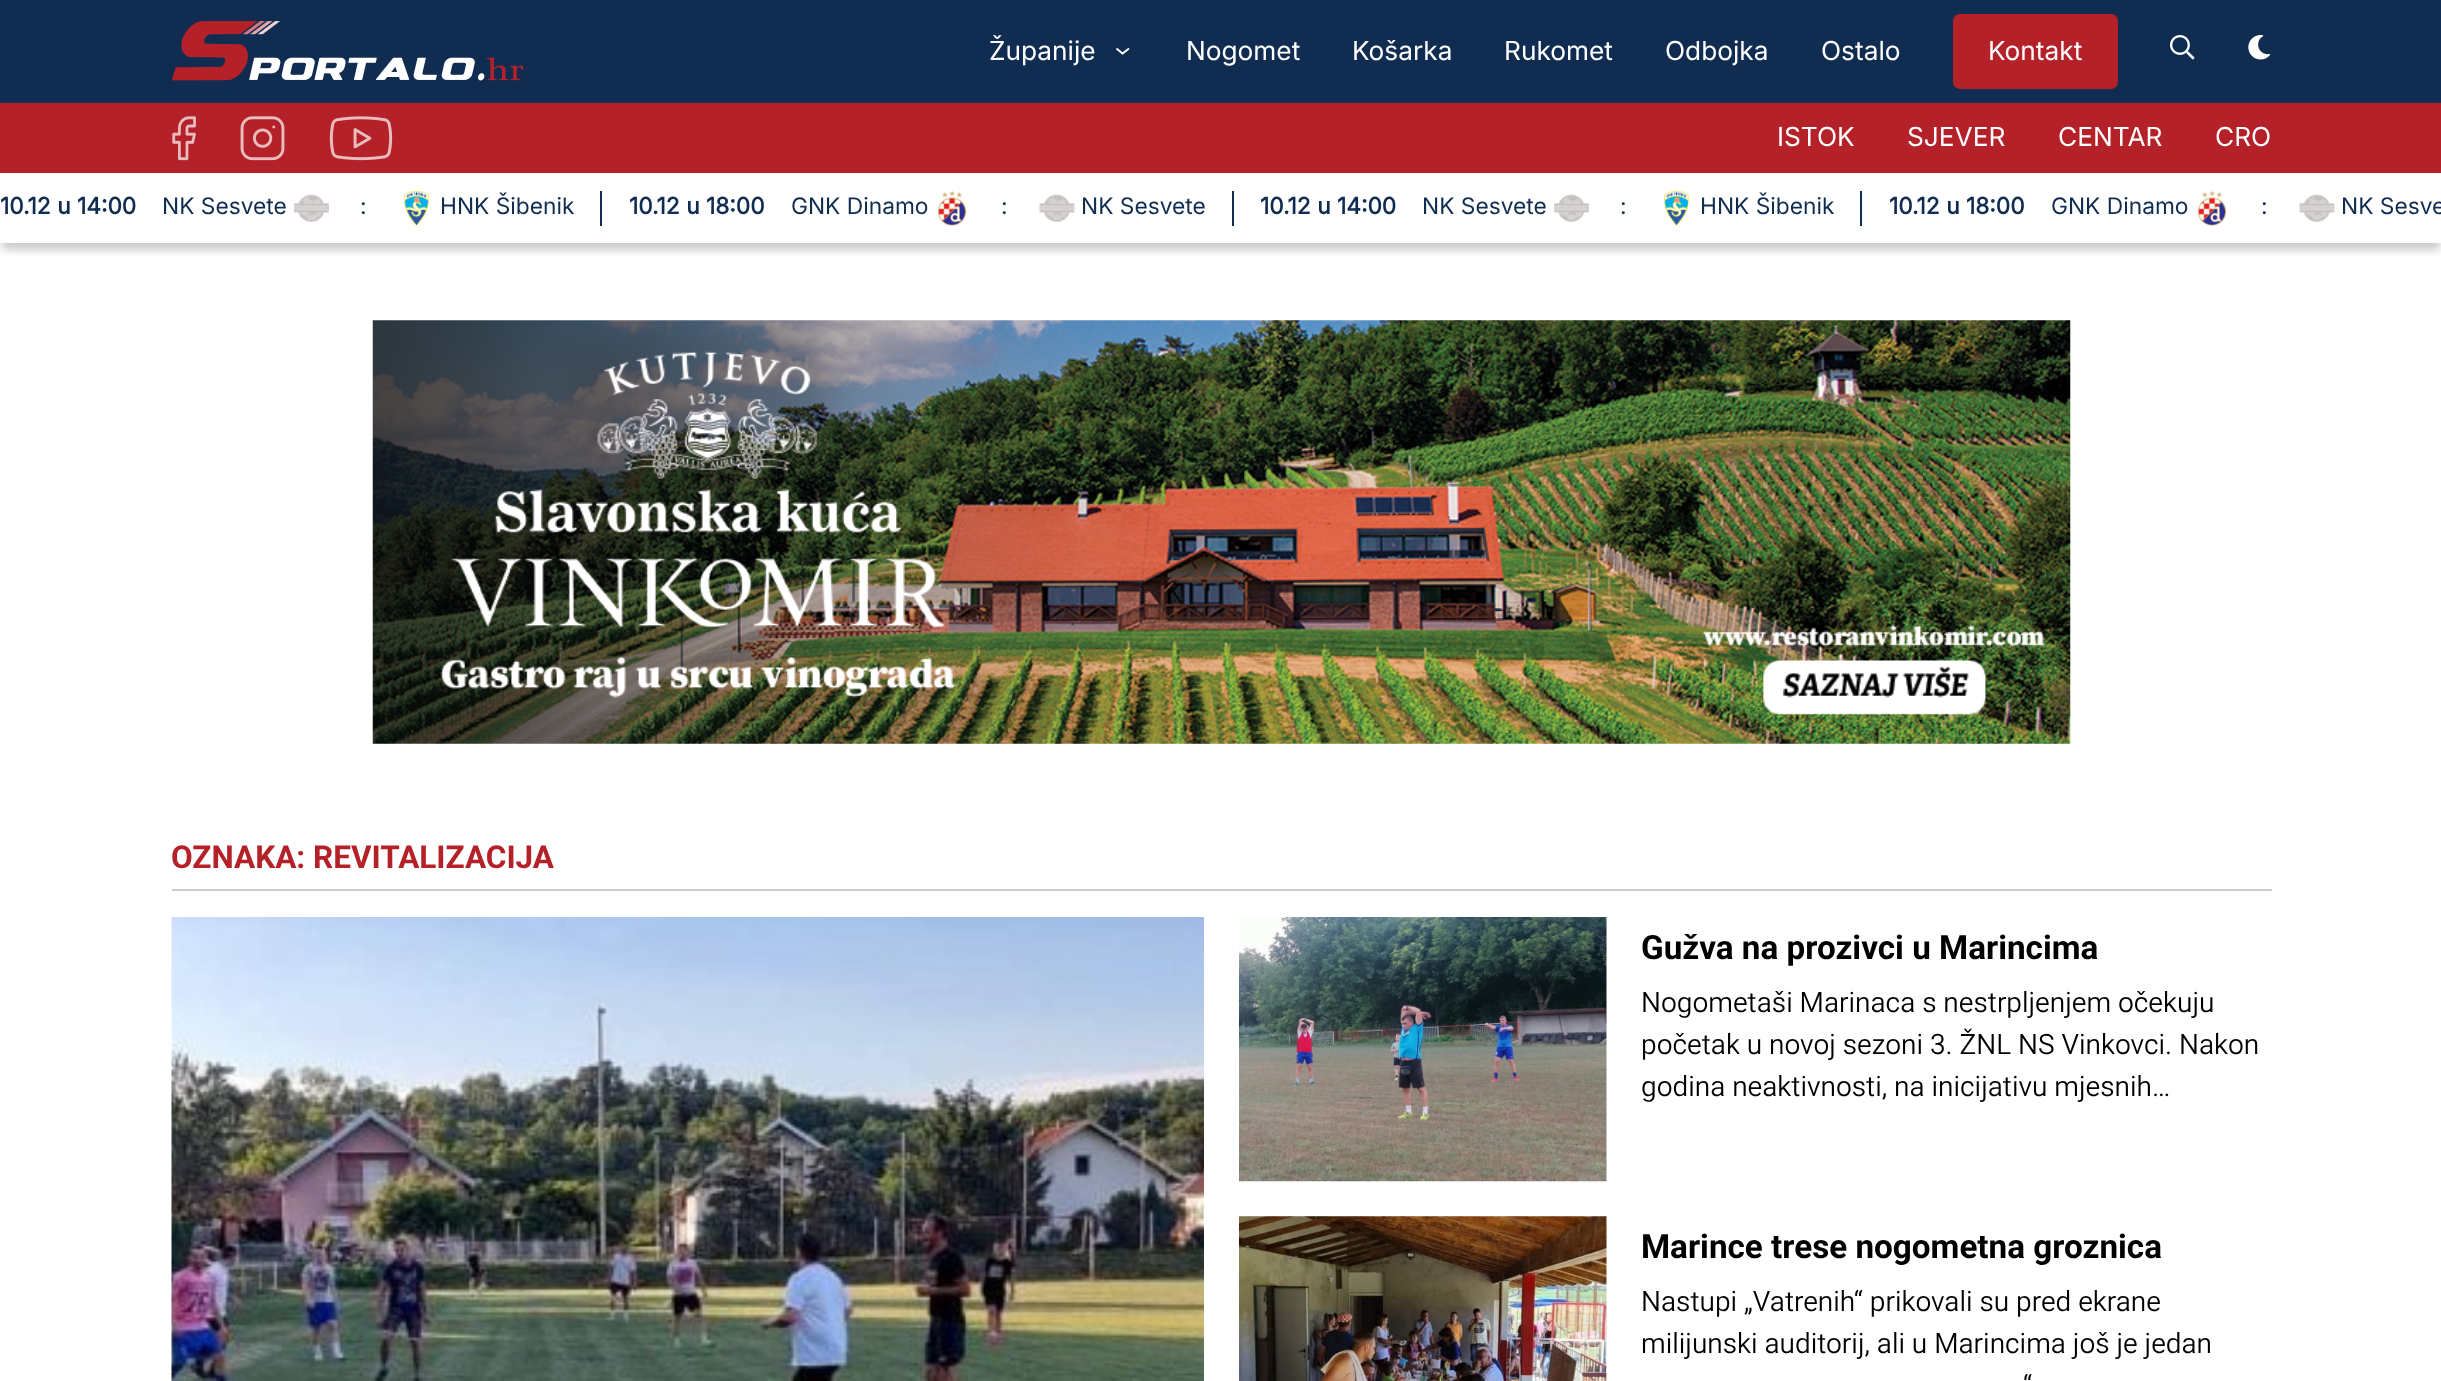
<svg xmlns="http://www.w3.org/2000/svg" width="2441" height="1381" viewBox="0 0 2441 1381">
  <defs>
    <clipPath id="clip1"><rect x="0" y="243" width="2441" height="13"/></clipPath>
  </defs>
  <rect width="100%" height="100%" fill="rgb(255,255,255)"/>
  <rect x="0" y="0" width="2441" height="103" fill="rgb(16,44,81)"/>
  <image x="172" y="21" width="351" height="60" href="pic1.png"/>
  <text x="989" y="60" font-family="Inter" font-size="26.25" fill="rgb(255,255,255)">Županije</text>
  <path d="M1129 48.5L1122.5 53.5L1116.5 48.5" fill="none" stroke="rgb(255,255,255)" stroke-width="1.8"/>
  <g font-family="Inter" font-size="26.25" fill="rgb(255,255,255)">
    <text x="1186" y="60">Nogomet</text>
    <text x="1352" y="60">Košarka</text>
    <text x="1504" y="60">Rukomet</text>
    <text x="1665" y="60">Odbojka</text>
    <text x="1821" y="60">Ostalo</text>
  </g>
  <rect x="1953" y="14" width="165" height="75" rx="7" fill="rgb(181,33,40)"/>
  <text x="1988" y="60" font-family="Inter" font-size="26.25" fill="rgb(255,255,255)">Kontakt</text>
  <image x="2170" y="35" width="25" height="25" href="pic2.png"/>
  <image x="2248" y="35" width="23" height="25" href="pic3.png"/>
  <rect x="0" y="103" width="2441" height="70" fill="rgb(181,33,40)"/>
  <image x="172" y="116" width="24" height="45" href="pic4.png"/>
  <image x="240" y="116" width="45" height="45" href="pic5.png"/>
  <image x="329" y="116" width="64" height="45" href="pic6.png"/>
  <g font-family="Inter" font-size="26.25" fill="rgb(255,255,255)">
    <text x="1777" y="146">ISTOK</text>
    <text x="1907" y="146">SJEVER</text>
    <text x="2058" y="146">CENTAR</text>
    <text x="2215" y="146">CRO</text>
  </g>
  <g clip-path="url(#clip1)">
    <rect x="2" y="184" width="2438" height="66" fill="rgba(0,0,0,0.2)" filter="blur(4.5px)"/>
  </g>
  <rect x="600" y="191" width="2" height="35" fill="rgb(16,44,81)"/>
  <text x="0" y="214" font-family="Inter" font-size="22.75" font-weight="bold" fill="rgb(16,44,81)">10.12 u 14:00</text>
  <text x="162" y="214" font-family="Inter" font-size="22.75" fill="rgb(16,44,81)">NK Sesvete</text>
  <image x="294" y="194" width="35" height="28" href="pic7.png"/>
  <text x="360" y="214" font-family="Inter" font-size="22.75" fill="rgb(16,44,81)">:</text>
  <image x="404" y="190" width="25" height="36" href="pic8.png"/>
  <text x="440" y="214" font-family="Inter" font-size="22.75" fill="rgb(16,44,81)">HNK Šibenik</text>
  <rect x="1232" y="191" width="2" height="35" fill="rgb(16,44,81)"/>
  <text x="629" y="214" font-family="Inter" font-size="22.75" font-weight="bold" fill="rgb(16,44,81)">10.12 u 18:00</text>
  <text x="791" y="214" font-family="Inter" font-size="22.75" fill="rgb(16,44,81)">GNK Dinamo</text>
  <image x="938" y="191" width="29" height="35" href="pic9.png"/>
  <text x="1001" y="214" font-family="Inter" font-size="22.75" fill="rgb(16,44,81)">:</text>
  <image x="1039" y="194" width="36" height="28" href="pic10.png"/>
  <text x="1081" y="214" font-family="Inter" font-size="22.75" fill="rgb(16,44,81)">NK Sesvete</text>
  <rect x="1860" y="191" width="2" height="35" fill="rgb(16,44,81)"/>
  <text x="1260" y="214" font-family="Inter" font-size="22.75" font-weight="bold" fill="rgb(16,44,81)">10.12 u 14:00</text>
  <text x="1422" y="214" font-family="Inter" font-size="22.75" fill="rgb(16,44,81)">NK Sesvete</text>
  <image x="1554" y="194" width="35" height="28" href="pic11.png"/>
  <text x="1620" y="214" font-family="Inter" font-size="22.75" fill="rgb(16,44,81)">:</text>
  <image x="1664" y="190" width="25" height="36" href="pic8.png"/>
  <text x="1700" y="214" font-family="Inter" font-size="22.75" fill="rgb(16,44,81)">HNK Šibenik</text>
  <text x="1889" y="214" font-family="Inter" font-size="22.75" font-weight="bold" fill="rgb(16,44,81)">10.12 u 18:00</text>
  <text x="2051" y="214" font-family="Inter" font-size="22.75" fill="rgb(16,44,81)">GNK Dinamo</text>
  <image x="2198" y="191" width="29" height="35" href="pic9.png"/>
  <text x="2261" y="214" font-family="Inter" font-size="22.75" fill="rgb(16,44,81)">:</text>
  <image x="2299" y="194" width="36" height="28" href="pic12.png"/>
  <text x="2341" y="214" font-family="Inter" font-size="22.75" fill="rgb(16,44,81)">NK Sesve</text>
  <image x="372" y="320" width="1699" height="424" href="pic13.png"/>
  <rect x="172" y="889" width="2100" height="2" fill="rgb(204,204,204)"/>
  <text x="171" y="868" font-family="Roboto" font-size="31.5" font-weight="bold" fill="rgb(181,33,40)">OZNAKA: REVITALIZACIJA</text>
  <image x="171" y="917" width="1033" height="464" href="pic14.png"/>
  <image x="1239" y="917" width="368" height="265" href="pic15.png"/>
  <text x="1641" y="959" font-family="Roboto" font-size="33.25" font-weight="bold" fill="rgb(0,0,0)">Gužva na prozivci u Marincima</text>
  <g font-family="Roboto" font-size="28" font-weight="300" fill="rgb(0,0,0)">
    <text>
      <tspan x="1641" y="1012">Nogometaši Marinaca s nestrpljenjem očekuju</tspan>
      <tspan x="1641" y="1054">početak u novoj sezoni 3. ŽNL NS Vinkovci. Nakon</tspan>
      <tspan x="1641" y="1096">godina neaktivnosti, na inicijativu mjesnih…</tspan>
    </text>
  </g>
  <image x="1239" y="1216" width="368" height="165" href="pic16.png"/>
  <text x="1641" y="1258" font-family="Roboto" font-size="33.25" font-weight="bold" fill="rgb(0,0,0)">Marince trese nogometna groznica</text>
  <g font-family="Roboto" font-size="28" font-weight="300" fill="rgb(0,0,0)">
    <text>
      <tspan x="1641" y="1311">Nastupi „Vatrenih“ prikovali su pred ekrane</tspan>
      <tspan x="1641" y="1353">milijunski auditorij, ali u Marincima još je jedan</tspan>
    </text>
    <text x="2023" y="1395">“</text>
  </g>
</svg>
